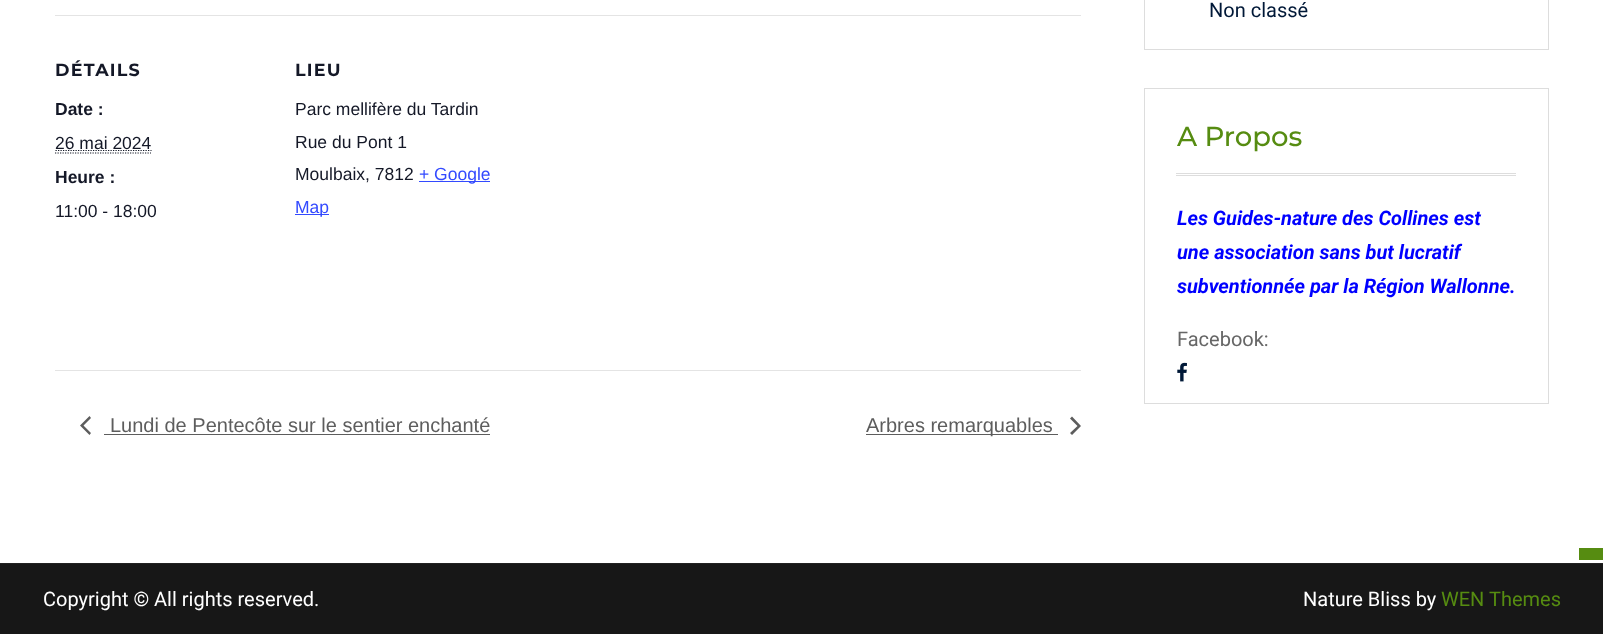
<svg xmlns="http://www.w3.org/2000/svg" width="1603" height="634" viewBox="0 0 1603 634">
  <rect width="100%" height="100%" fill="rgb(255,255,255)"/>
  <rect x="55" y="15" width="1026" height="1" fill="rgb(228,228,228)"/>
  <text x="55" y="76" font-family="Montserrat" font-size="17.5" font-weight="bold" letter-spacing="1.25" fill="rgb(20,24,39)">DÉTAILS</text>
  <text x="55" y="115" font-family="Liberation Sans" font-size="17.5" font-weight="bold" fill="rgb(20,24,39)">Date :</text>
  <path d="M55.5 150.5H151.5" fill="none" stroke="rgb(20,24,39)" stroke-width="1.2" stroke-dasharray="1.25 1.25"/>
  <text x="55" y="149" font-family="Liberation Sans" font-size="17.5" fill="rgb(20,24,39)">26 mai 2024</text>
  <path d="M55 153H151" fill="none" stroke="rgb(20,24,39)" stroke-width="1.2" stroke-dasharray="1.25 1.25"/>
  <text x="55" y="183" font-family="Liberation Sans" font-size="17.5" font-weight="bold" fill="rgb(20,24,39)">Heure :</text>
  <text x="55" y="217" font-family="Liberation Sans" font-size="17.5" fill="rgb(20,24,39)">11:00 - 18:00</text>
  <text x="295" y="76" font-family="Montserrat" font-size="17.5" font-weight="bold" letter-spacing="1.25" fill="rgb(20,24,39)">LIEU</text>
  <g font-family="Liberation Sans" font-size="17.5" fill="rgb(20,24,39)">
    <text>
      <tspan x="295" y="115">Parc mellifère du Tardin</tspan>
      <tspan x="295" y="148">Rue du Pont 1</tspan>
      <tspan x="295" y="180">Moulbaix, 7812</tspan>
    </text>
  </g>
  <rect x="419" y="181" width="71" height="1" fill="rgb(51,74,255)"/>
  <text x="419" y="180" font-family="Liberation Sans" font-size="17.5" fill="rgb(51,74,255)">+ Google</text>
  <rect x="295" y="214" width="34" height="1" fill="rgb(51,74,255)"/>
  <text x="295" y="213" font-family="Liberation Sans" font-size="17.5" fill="rgb(51,74,255)">Map</text>
  <rect x="55" y="370" width="1026" height="1" fill="rgb(228,228,228)"/>
  <path d="M91 433L89.5 435L80 425.5L89.5 416L91 418L83.5 425.5Z" fill="rgb(93,93,93)"/>
  <text x="110" y="432" font-family="Liberation Sans" font-size="20" fill="rgb(93,93,93)">Lundi de Pentecôte sur le sentier enchanté</text>
  <rect x="104" y="434" width="386" height="1" fill="rgb(93,93,93)"/>
  <rect x="866" y="434" width="192" height="1" fill="rgb(93,93,93)"/>
  <text x="866" y="432" font-family="Liberation Sans" font-size="20" fill="rgb(93,93,93)">Arbres remarquables</text>
  <path d="M1070 418.5L1072 416.5L1081 426L1072 435L1070 433L1077.5 426Z" fill="rgb(93,93,93)"/>
  <rect x="1144.5" y="-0.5" width="404" height="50" fill="none" stroke="rgb(221,221,221)"/>
  <text x="1209" y="17" font-family="Roboto" font-size="20" fill="rgb(0,24,55)">Non classé</text>
  <rect x="1144.5" y="88.5" width="404" height="315" fill="none" stroke="rgb(221,221,221)"/>
  <rect x="1176" y="173" width="340" height="1" fill="rgb(221,221,221)"/>
  <rect x="1176" y="175" width="340" height="1" fill="rgb(221,221,221)"/>
  <text x="1177" y="146" font-family="Montserrat" font-size="27.5" font-weight="500" fill="rgb(86,140,17)">A Propos</text>
  <g font-family="Roboto" font-size="20" font-weight="bold" font-style="italic" fill="rgb(0,0,255)">
    <text>
      <tspan x="1177" y="225">Les Guides-nature des Collines est</tspan>
      <tspan x="1177" y="259">une association sans but lucratif</tspan>
      <tspan x="1177" y="293">subventionnée par la Région Wallonne.</tspan>
    </text>
  </g>
  <text x="1177" y="346" font-family="Roboto" font-size="20" fill="rgb(102,102,102)">Facebook:</text>
  <image x="1177" y="362" width="10" height="20" href="pic1.png"/>
  <rect x="0" y="564" width="1603" height="70" fill="rgb(23,23,23)"/>
  <rect x="0" y="563" width="1603" height="1" fill="rgb(34,34,34)"/>
  <g font-family="Roboto" font-size="20" fill="rgb(255,255,255)">
    <text x="43" y="606">Copyright © All rights reserved.</text>
    <text x="1303" y="606">Nature Bliss by</text>
  </g>
  <text x="1441" y="606" font-family="Roboto" font-size="20" fill="rgb(86,140,17)">WEN Themes</text>
  <rect x="1579" y="548" width="24" height="12" fill="rgb(86,140,17)"/>
</svg>
